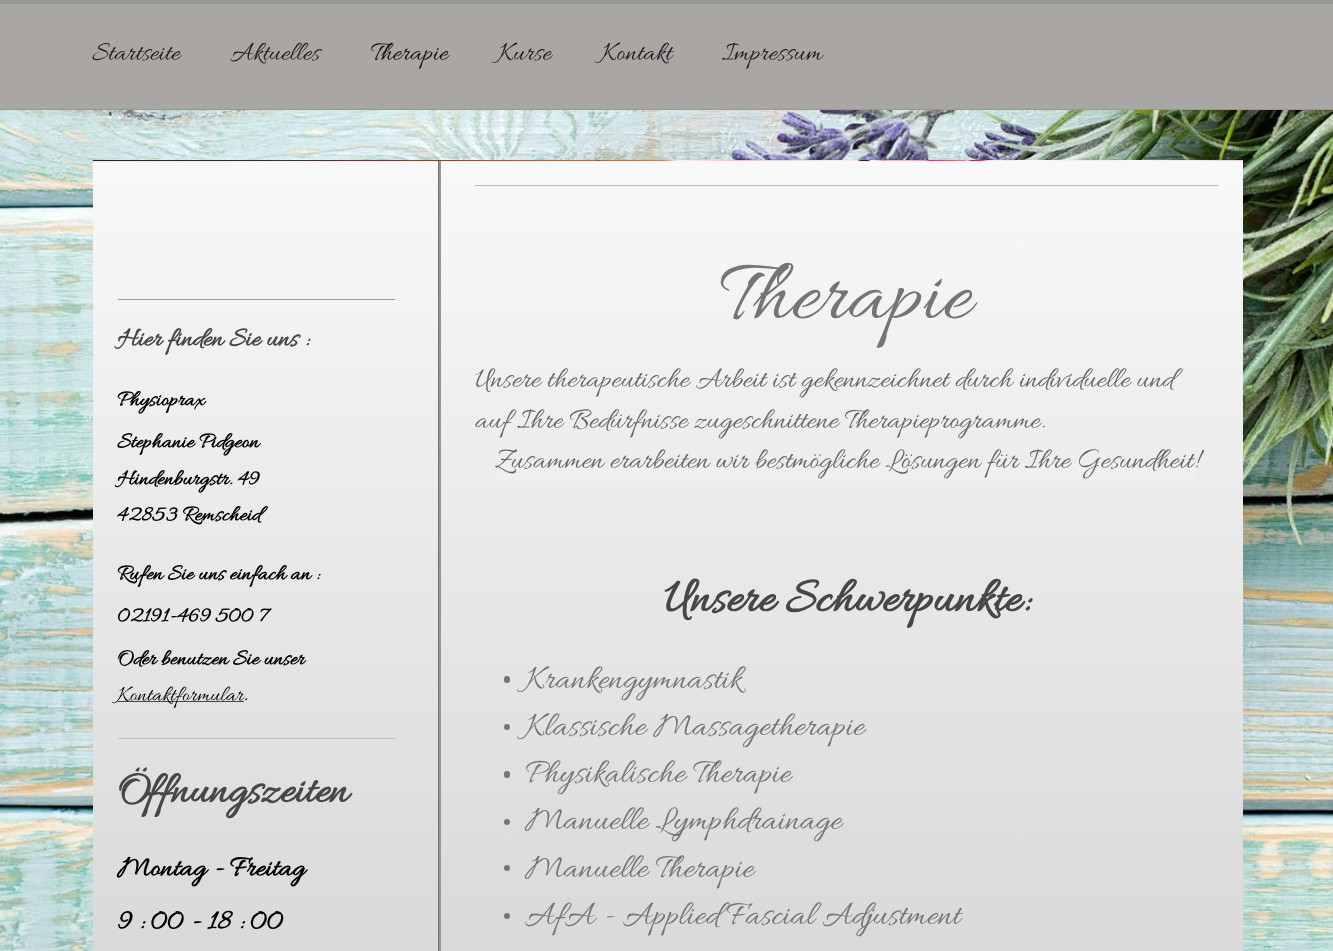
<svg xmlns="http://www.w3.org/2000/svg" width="1333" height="951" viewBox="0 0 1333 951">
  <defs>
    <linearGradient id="g1" gradientUnits="userSpaceOnUse" x1="667" y1="0" x2="667" y2="951"><stop offset="0" stop-color="rgb(255,255,255)"/><stop offset="1" stop-color="rgb(217,217,217)"/></linearGradient>
    <clipPath id="clip1"><rect x="93" y="160" width="1150" height="1"/></clipPath>
  </defs>
  <rect width="100%" height="100%" fill="rgb(255,255,255)"/>
  <image x="0" y="110" width="1333" height="841" href="pic1.png"/>
  <rect x="0" y="0" width="1333" height="4" fill="rgb(150,152,151)"/>
  <rect x="0" y="109" width="1333" height="1" fill="rgb(150,152,151)"/>
  <rect x="0" y="4" width="1333" height="105" fill="rgb(169,166,163)"/>
  <g font-family="Allura" font-size="27.5" fill="rgb(29,28,28)">
    <text x="92" y="59">Startseite</text>
    <text x="230" y="59">Aktuelles</text>
  </g>
  <text x="371" y="59" font-family="Allura" font-size="27.5" fill="rgb(17,17,16)">Therapie</text>
  <g font-family="Allura" font-size="27.5" fill="rgb(29,28,28)">
    <text x="498" y="59">Kurse</text>
    <text x="601" y="59">Kontakt</text>
    <text x="722" y="59">Impressum</text>
  </g>
  <rect x="1242" y="160" width="1" height="1" fill="rgb(238,238,238)"/>
  <rect x="93" y="161" width="1150" height="790" fill="url(#g1)"/>
  <rect x="439" y="161" width="2" height="790" fill="rgb(150,152,151)"/>
  <rect x="438" y="161" width="1" height="790" fill="rgb(112,114,113)"/>
  <image x="92" y="160" width="1151" height="2" href="pic2.png"/>
  <g clip-path="url(#clip1)">
    <rect x="595.5" y="160.5" width="5" height="5" fill="none" stroke="rgb(102,102,102)"/>
  </g>
  <rect x="118" y="299" width="277" height="1" fill="rgb(150,152,151)"/>
  <text x="117" y="345" font-family="Allura" font-size="27.5" font-weight="bold" fill="rgb(71,71,71)">Hier finden Sie uns :</text>
  <g font-family="Allura" font-size="22.75" font-weight="bold" fill="rgb(0,0,0)">
    <text>
      <tspan x="117" y="405">Physioprax</tspan>
      <tspan x="117" y="447">Stephanie Pidgeon</tspan>
      <tspan x="117" y="484">Hindenburgstr. 49</tspan>
      <tspan x="117" y="520">42853 Remscheid</tspan>
    </text>
    <text>
      <tspan x="117" y="579">Rufen Sie uns einfach an :</tspan>
      <tspan x="117" y="621">02191-469 500 7</tspan>
      <tspan x="117" y="664">Oder benutzen Sie unser</tspan>
    </text>
  </g>
  <rect x="118" y="701" width="126" height="1" fill="rgb(71,71,71)"/>
  <text x="117" y="700" font-family="Allura" font-size="22.75" fill="rgb(0,0,0)">Kontaktformular</text>
  <text x="243" y="700" font-family="Allura" font-size="22.75" font-weight="bold" fill="rgb(0,0,0)">.</text>
  <rect x="118" y="738" width="277" height="1" fill="rgb(186,186,186)"/>
  <text x="117" y="801" font-family="Allura" font-size="45.5" font-weight="bold" fill="rgb(71,71,71)">Öffnungszeiten</text>
  <g font-family="Allura" font-size="30" font-weight="bold" fill="rgb(0,0,0)">
    <text>
      <tspan x="117" y="875">Montag - Freitag</tspan>
      <tspan x="117" y="928">9 : 00 - 18 : 00</tspan>
    </text>
  </g>
  <rect x="475" y="185" width="743" height="1" fill="rgb(186,186,186)"/>
  <text x="720" y="316" font-family="Allura" font-size="90" fill="rgb(117,117,117)">Therapie</text>
  <g font-family="Allura" font-size="30" fill="rgb(102,102,102)">
    <text>
      <tspan x="475" y="386">Unsere therapeutische Arbeit ist gekennzeichnet durch individuelle und</tspan>
      <tspan x="475" y="427">auf Ihre Bedürfnisse zugeschnittene Therapieprogramme.</tspan>
    </text>
  </g>
  <rect x="495" y="463" width="703" height="18" fill="rgb(239,239,239)"/>
  <text x="495" y="467" font-family="Allura" font-size="30" fill="rgb(102,102,102)">Zusammen erarbeiten wir bestmögliche Lösungen für Ihre Gesundheit!</text>
  <text x="664" y="610" font-family="Allura" font-size="50.5" font-weight="bold" fill="rgb(71,71,71)">Unsere Schwerpunkte:</text>
  <rect x="504" y="676" width="6" height="7" rx="3" fill="rgb(117,117,117)"/>
  <text x="525" y="687" font-family="Allura" font-size="35" fill="rgb(117,117,117)">Krankengymnastik</text>
  <circle cx="507" cy="727" r="3" fill="rgb(117,117,117)"/>
  <text x="525" y="734" font-family="Allura" font-size="35" fill="rgb(117,117,117)">Klassische Massagetherapie</text>
  <rect x="504" y="771" width="6" height="7" rx="3" fill="rgb(117,117,117)"/>
  <text x="525" y="781" font-family="Allura" font-size="35" fill="rgb(117,117,117)">Physikalische Therapie</text>
  <circle cx="507" cy="822" r="3" fill="rgb(117,117,117)"/>
  <text x="525" y="828" font-family="Allura" font-size="35" fill="rgb(117,117,117)">Manuelle Lymphdrainage</text>
  <circle cx="507" cy="868" r="3" fill="rgb(117,117,117)"/>
  <text x="525" y="876" font-family="Allura" font-size="35" fill="rgb(117,117,117)">Manuelle Therapie</text>
  <circle cx="507" cy="916" r="3" fill="rgb(117,117,117)"/>
  <text x="525" y="923" font-family="Allura" font-size="35" fill="rgb(117,117,117)">AfA - Applied Fascial Adjustment</text>
</svg>
